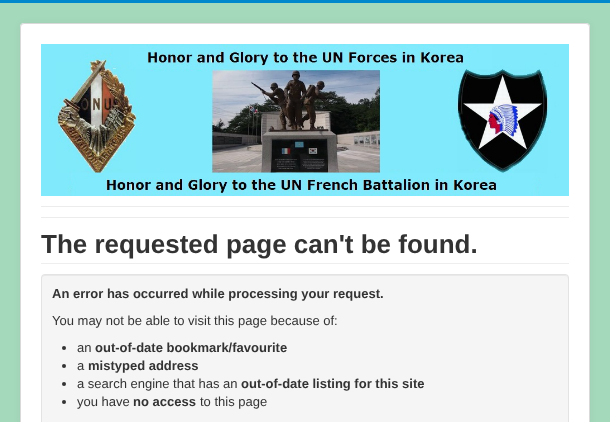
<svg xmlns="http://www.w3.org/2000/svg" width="610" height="422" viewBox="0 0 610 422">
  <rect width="100%" height="100%" fill="rgb(165,217,188)"/>
  <rect x="0" y="0" width="610" height="3" fill="rgb(0,136,204)"/>
  <rect x="20" y="23" width="570" height="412" rx="4" fill="rgba(0,0,0,0.05)" filter="blur(3px)"/>
  <rect x="20" y="23" width="570" height="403" rx="4" fill="rgb(255,255,255)"/>
  <rect x="20.5" y="23.5" width="569" height="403" rx="3.5" fill="none" stroke="rgba(0,0,0,0.15)"/>
  <image x="41" y="44" width="528" height="152" href="pic1.png"/>
  <rect x="41" y="206" width="528" height="1" fill="rgb(236,236,236)"/>
  <rect x="41" y="217" width="528" height="1" fill="rgb(236,236,236)"/>
  <rect x="41" y="263" width="528" height="1" fill="rgb(238,238,238)"/>
  <text x="41" y="253" font-family="Liberation Sans" font-size="26" font-weight="bold" fill="rgb(51,51,51)">The requested page can't be found.</text>
  <rect x="41" y="274" width="528" height="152" rx="4" fill="rgb(245,245,245)"/>
  <path d="M45 276H565C567 276 568 277 568 279L567 276L565 275H45C43 275 42 277 42 279C42 277 43 276 45 276Z" fill="rgb(233,233,233)"/>
  <rect x="41.5" y="274.5" width="527" height="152" rx="3.5" fill="none" stroke="rgb(227,227,227)"/>
  <text x="52" y="298" font-family="Liberation Sans" font-size="13" font-weight="bold" fill="rgb(51,51,51)">An error has occurred while processing your request.</text>
  <text x="52" y="325" font-family="Liberation Sans" font-size="13" fill="rgb(51,51,51)">You may not be able to visit this page because of:</text>
  <circle cx="64" cy="348" r="2" fill="rgb(51,51,51)"/>
  <text x="77" y="352" font-family="Liberation Sans" font-size="13" fill="rgb(51,51,51)">an</text>
  <text x="95" y="352" font-family="Liberation Sans" font-size="13" font-weight="bold" fill="rgb(51,51,51)">out-of-date bookmark/favourite</text>
  <circle cx="64" cy="366" r="2" fill="rgb(51,51,51)"/>
  <text x="77" y="370" font-family="Liberation Sans" font-size="13" fill="rgb(51,51,51)">a</text>
  <text x="88" y="370" font-family="Liberation Sans" font-size="13" font-weight="bold" fill="rgb(51,51,51)">mistyped address</text>
  <circle cx="64" cy="384" r="2" fill="rgb(51,51,51)"/>
  <text x="77" y="388" font-family="Liberation Sans" font-size="13" fill="rgb(51,51,51)">a search engine that has an</text>
  <text x="241" y="388" font-family="Liberation Sans" font-size="13" font-weight="bold" fill="rgb(51,51,51)">out-of-date listing for this site</text>
  <circle cx="64" cy="402" r="2" fill="rgb(51,51,51)"/>
  <text x="77" y="406" font-family="Liberation Sans" font-size="13" fill="rgb(51,51,51)">you have</text>
  <text x="133" y="406" font-family="Liberation Sans" font-size="13" font-weight="bold" fill="rgb(51,51,51)">no access</text>
  <text x="200" y="406" font-family="Liberation Sans" font-size="13" fill="rgb(51,51,51)">to this page</text>
</svg>
